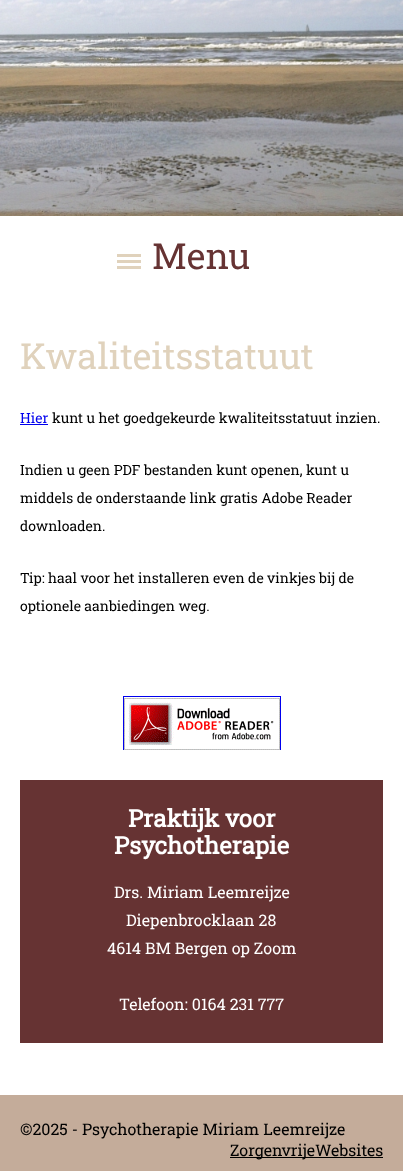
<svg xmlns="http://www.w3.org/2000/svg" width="403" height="1171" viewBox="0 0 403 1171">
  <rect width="100%" height="100%" fill="rgb(196,172,154)"/>
  <rect x="0" y="216" width="403" height="879" fill="rgb(255,255,255)"/>
  <image x="0" y="0" width="403" height="216" href="pic1.png"/>
  <rect x="117" y="260" width="24" height="3" fill="rgb(224,210,188)"/>
  <rect x="117" y="254" width="24" height="3" fill="rgb(224,210,188)"/>
  <rect x="117" y="266" width="24" height="3" fill="rgb(224,210,188)"/>
  <text x="152" y="269" font-family="Roboto Slab" font-size="36" fill="rgb(102,51,51)">Menu</text>
  <text x="20" y="369" font-family="Roboto Slab" font-size="36" fill="rgb(224,210,188)">Kwaliteitsstatuut</text>
  <text x="20" y="423" font-family="Roboto Slab" font-size="14" fill="rgb(0,0,238)">Hier</text>
  <rect x="20" y="424" width="28" height="1" fill="rgb(0,0,238)"/>
  <g font-family="Roboto Slab" font-size="14" fill="rgb(0,0,0)">
    <text x="52" y="423">kunt u het goedgekeurde kwaliteitsstatuut inzien.</text>
    <text x="20" y="475">Indien u geen PDF bestanden kunt openen, kunt u</text>
    <text x="20" y="503">middels de onderstaande link gratis Adobe Reader</text>
    <text x="20" y="531">downloaden.</text>
    <text x="20" y="583">Tip: haal voor het installeren even de vinkjes bij de</text>
    <text x="20" y="611">optionele aanbiedingen weg.</text>
  </g>
  <rect x="123.5" y="696.5" width="157" height="53" fill="none" stroke="rgb(0,0,238)"/>
  <image x="124" y="698" width="156" height="52" href="pic2.png"/>
  <rect x="20" y="780" width="363" height="263" fill="rgb(102,51,51)"/>
  <g font-family="Roboto Slab" font-size="24" font-weight="bold" fill="rgb(255,255,255)">
    <text x="128" y="827">Praktijk voor</text>
    <text x="114" y="854">Psychotherapie</text>
  </g>
  <g font-family="Roboto Slab" font-size="16" fill="rgb(255,255,255)">
    <text x="114" y="898">Drs. Miriam Leemreijze</text>
    <text x="126" y="926">Diepenbrocklaan 28</text>
    <text x="107" y="954">4614 BM Bergen op Zoom</text>
    <text x="119" y="1010">Telefoon: 0164 231 777</text>
  </g>
  <text x="20" y="1135" font-family="Roboto Slab" font-size="16" fill="rgb(0,0,0)">©2025 - Psychotherapie Miriam Leemreijze</text>
  <rect x="230" y="1157" width="153" height="1" fill="rgb(0,0,0)"/>
  <text x="230" y="1156" font-family="Roboto Slab" font-size="16" fill="rgb(0,0,0)">ZorgenvrijeWebsites</text>
</svg>
